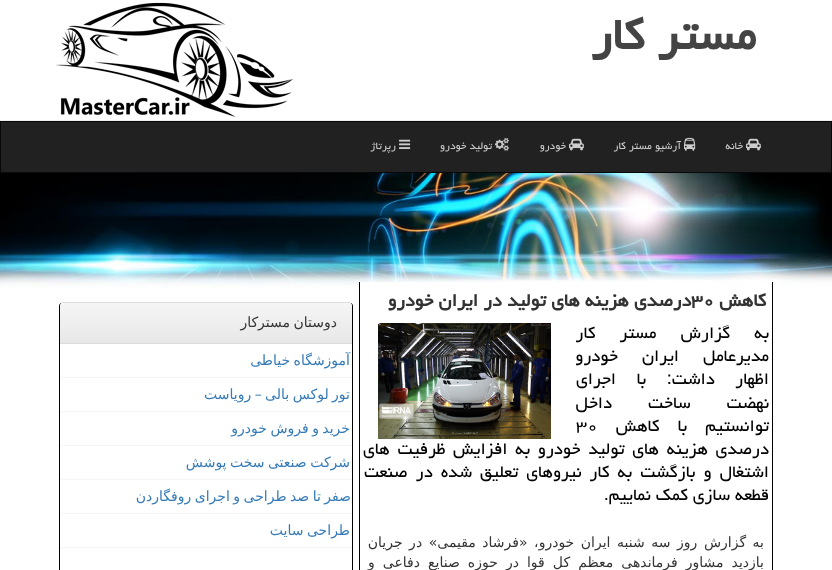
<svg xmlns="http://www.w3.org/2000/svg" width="832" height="570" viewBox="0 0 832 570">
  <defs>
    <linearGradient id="g1" gradientUnits="userSpaceOnUse" x1="206" y1="303" x2="206" y2="343"><stop offset="0" stop-color="rgb(245,245,245)"/><stop offset="1" stop-color="rgb(232,232,232)"/></linearGradient>
  </defs>
  <rect width="100%" height="100%" fill="rgb(255,255,255)"/>
  <rect x="0" y="120" width="832" height="1" fill="rgb(238,238,238)"/>
  <text x="756" y="49" font-family="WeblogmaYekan" font-size="56" font-weight="bold" direction="rtl" fill="rgb(68,68,68)">مستر كار</text>
  <image x="56" y="2" width="237" height="116" href="pic1.png"/>
  <rect x="0.5" y="121.5" width="831" height="51" fill="rgb(33,33,33)" stroke="rgb(8,8,8)"/>
  <image x="746" y="138" width="15" height="13" href="pic2.png"/>
  <text x="743" y="149" font-family="WeblogmaYekan" font-size="13" direction="rtl" fill="rgb(204,204,204)">خانه</text>
  <image x="684" y="137" width="12" height="14" href="pic3.png"/>
  <text x="681" y="149" font-family="WeblogmaYekan" font-size="13" direction="rtl" fill="rgb(204,204,204)">آرشیو مستر كار</text>
  <image x="569" y="138" width="15" height="13" href="pic2.png"/>
  <text x="566" y="149" font-family="WeblogmaYekan" font-size="13" direction="rtl" fill="rgb(204,204,204)">خودرو</text>
  <image x="495" y="138" width="14" height="13" href="pic4.png"/>
  <text x="492" y="149" font-family="WeblogmaYekan" font-size="13" direction="rtl" fill="rgb(204,204,204)">تولید خودرو</text>
  <image x="399" y="139" width="12" height="10" href="pic5.png"/>
  <text x="396" y="149" font-family="WeblogmaYekan" font-size="13" direction="rtl" fill="rgb(204,204,204)">رپرتاژ</text>
  <image x="0" y="173" width="832" height="115" href="pic6.png"/>
  <rect x="360" y="282" width="358" height="6" fill="rgb(255,255,255)"/>
  <rect x="772" y="282" width="1" height="288" fill="rgb(0,0,0)"/>
  <rect x="359" y="282" width="1" height="288" fill="rgb(0,0,0)"/>
  <text x="766" y="306" font-family="WeblogmaYekan" font-size="22.4" font-weight="bold" direction="rtl" fill="rgb(51,51,51)">كاهش</text>
  <text x="691" y="306" font-family="WeblogmaYekan" font-size="22.4" font-weight="bold" fill="rgb(51,51,51)">۳۰</text>
  <text x="691" y="306" font-family="WeblogmaYekan" font-size="22.4" font-weight="bold" direction="rtl" fill="rgb(51,51,51)">درصدی هزینه های تولید در ایران خودرو</text>
  <text x="769" y="338" word-spacing="19" font-family="WeblogmaYekan" font-size="21" direction="rtl" fill="rgb(0,0,0)">به گزارش مستر كار</text>
  <image x="378" y="323" width="173" height="116" href="pic7.png"/>
  <g font-family="WeblogmaYekan" font-size="21" direction="rtl" fill="rgb(0,0,0)">
    <text>
      <tspan x="769" y="361" word-spacing="19">مدیرعامل ایران خودرو</tspan>
      <tspan x="769" y="384" word-spacing="15.5">اظهار داشت: با اجرای</tspan>
      <tspan x="769" y="408" word-spacing="31">نهضت ساخت داخل</tspan>
      <tspan x="769" y="431" word-spacing="13">توانستیم با كاهش</tspan>
    </text>
  </g>
  <text x="576" y="431" font-family="WeblogmaYekan" font-size="21" fill="rgb(0,0,0)">۳۰</text>
  <g font-family="WeblogmaYekan" font-size="21" direction="rtl" fill="rgb(0,0,0)">
    <text>
      <tspan x="769" y="454" word-spacing="2.75">درصدی هزینه های تولید خودرو به افزایش ظرفیت های</tspan>
      <tspan x="769" y="477" word-spacing="3">اشتغال و بازگشت به كار نیروهای تعلیق شده در صنعت</tspan>
      <tspan x="769" y="500">قطعه سازی كمك نماییم.</tspan>
    </text>
  </g>
  <g font-family="DejaVu Sans" font-size="14" direction="rtl" fill="rgb(51,51,51)">
    <text>
      <tspan x="764" y="547" word-spacing="2.1">به گزارش روز سه شنبه ایران خودرو، «فرشاد مقیمی» در جریان</tspan>
      <tspan x="764" y="567" word-spacing="3.6">بازدید مشاور فرماندهی معظم كل قوا در حوزه صنایع دفاعی و</tspan>
    </text>
  </g>
  <path d="M60.5 303.5L63 302.5H349L351.5 303.5" fill="none" stroke="rgb(221,221,221)"/>
  <path d="M351.5 303.5C352 304 352.5 305 352.5 306V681C352.5 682 352 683 351.5 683.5" fill="none" stroke="rgb(0,0,0)"/>
  <path d="M60.5 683.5C60 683 59.5 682 59.5 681V306C59.5 305 60 304 60.5 303.5" fill="none" stroke="rgb(0,0,0)"/>
  <path d="M63 303H349C350.5 303 352 304.5 352 306V343H60V306C60 304.5 61.5 303 63 303Z" fill="url(#g1)"/>
  <rect x="60" y="343" width="292" height="1" fill="rgb(221,221,221)"/>
  <text x="337" y="327" word-spacing="-1" font-family="DejaVu Sans" font-size="14" direction="rtl" fill="rgb(51,51,51)">دوستان مسترکار</text>
  <path d="M60 377.5H352" fill="none" stroke="rgb(237,237,237)" stroke-dasharray="1 1"/>
  <text x="350" y="365" word-spacing="-1" font-family="DejaVu Sans" font-size="14" direction="rtl" fill="rgb(51,122,183)">آموزشگاه خیاطی</text>
  <path d="M60 411.5H352" fill="none" stroke="rgb(237,237,237)" stroke-dasharray="1 1"/>
  <text x="350" y="399" word-spacing="-1" font-family="DejaVu Sans" font-size="14" direction="rtl" fill="rgb(51,122,183)">تور لوکس بالی – رویاست</text>
  <path d="M60 445.5H352" fill="none" stroke="rgb(237,237,237)" stroke-dasharray="1 1"/>
  <text x="350" y="433" word-spacing="-1" font-family="DejaVu Sans" font-size="14" direction="rtl" fill="rgb(51,122,183)">خرید و فروش خودرو</text>
  <path d="M60 479.5H352" fill="none" stroke="rgb(237,237,237)" stroke-dasharray="1 1"/>
  <text x="350" y="467" word-spacing="-1" font-family="DejaVu Sans" font-size="14" direction="rtl" fill="rgb(51,122,183)">شرکت صنعتی سخت پوشش</text>
  <path d="M60 513.5H352" fill="none" stroke="rgb(237,237,237)" stroke-dasharray="1 1"/>
  <text x="351" y="501" word-spacing="-1" font-family="DejaVu Sans" font-size="14" direction="rtl" fill="rgb(51,122,183)">صفر تا صد طراحی و اجرای روفگاردن</text>
  <path d="M60 547.5H352" fill="none" stroke="rgb(237,237,237)" stroke-dasharray="1 1"/>
  <text x="350" y="535" word-spacing="-1" font-family="DejaVu Sans" font-size="14" direction="rtl" fill="rgb(51,122,183)">طراحی سایت</text>
</svg>
